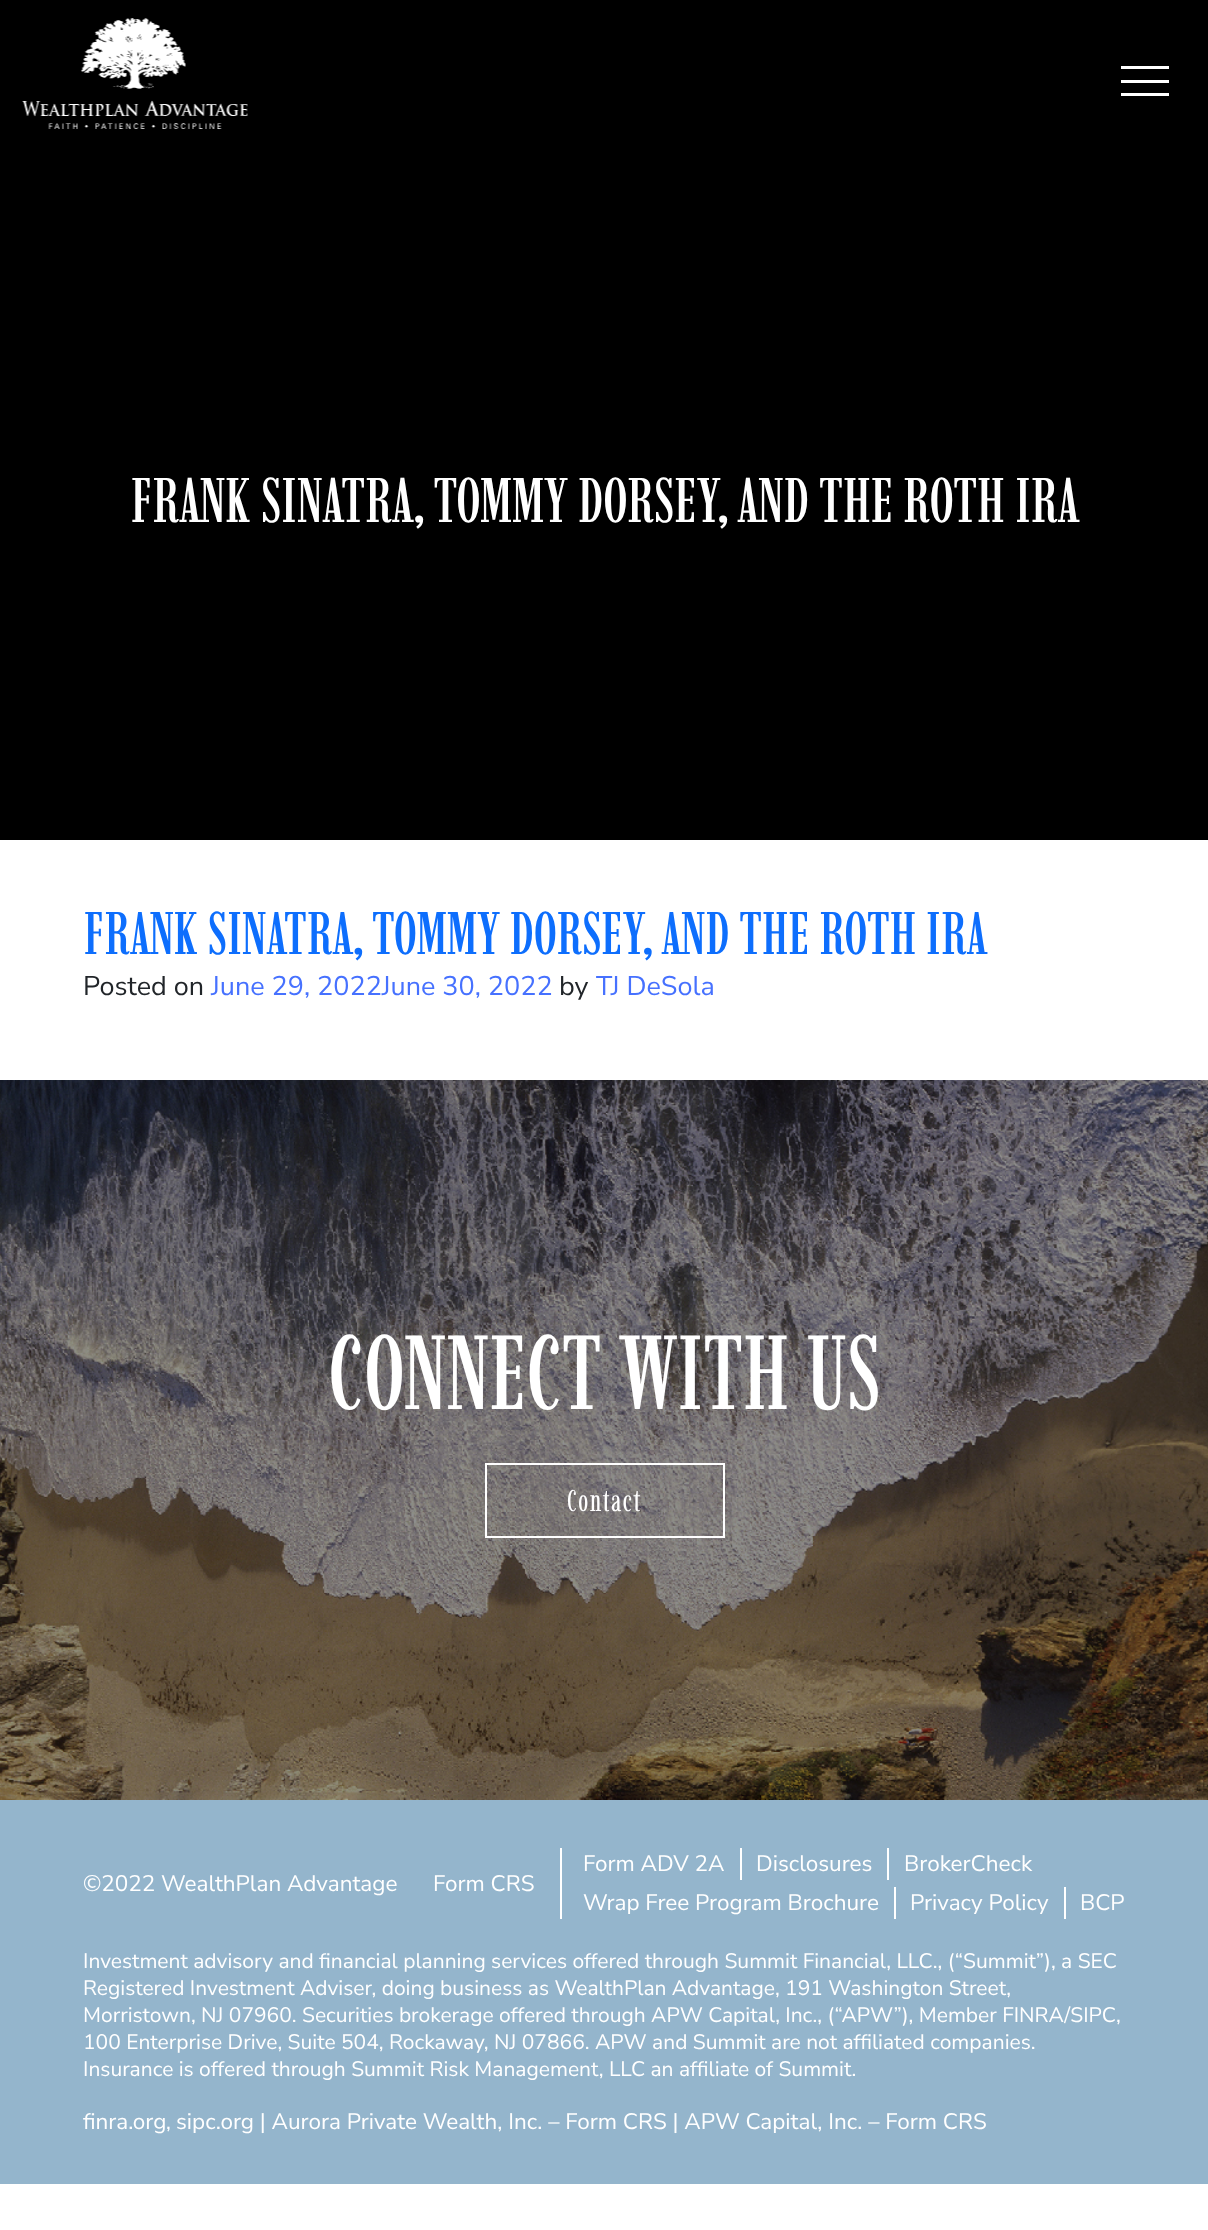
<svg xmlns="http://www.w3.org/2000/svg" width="1208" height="2230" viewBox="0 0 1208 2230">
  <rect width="100%" height="100%" fill="rgb(255,255,255)"/>
  <rect x="0" y="0" width="1208" height="840" fill="rgb(0,0,0)"/>
  <image x="22" y="18" width="226" height="111" href="pic1.png"/>
  <rect x="1121" y="66" width="48" height="3" fill="rgb(255,255,255)"/>
  <rect x="1121" y="80" width="48" height="3" fill="rgb(255,255,255)"/>
  <rect x="1121" y="93" width="48" height="3" fill="rgb(255,255,255)"/>
  <text x="130" y="522" font-family="Imbue" font-size="63" font-weight="500" fill="rgb(255,255,255)">FRANK SINATRA, TOMMY DORSEY, AND THE ROTH IRA</text>
  <text x="83" y="954" font-family="Imbue" font-size="60" font-weight="500" fill="rgb(13,110,253)">FRANK SINATRA, TOMMY DORSEY, AND THE ROTH IRA</text>
  <text x="83" y="995" font-family="Nunito Sans" font-size="27" fill="rgb(33,37,41)">Posted on</text>
  <text x="211" y="995" font-family="Nunito Sans" font-size="27" fill="rgb(70,113,255)">June 29, 2022June 30, 2022</text>
  <text x="559" y="995" font-family="Nunito Sans" font-size="27" fill="rgb(33,37,41)">by</text>
  <text x="596" y="995" font-family="Nunito Sans" font-size="27" fill="rgb(70,113,255)">TJ DeSola</text>
  <image x="0" y="1080" width="1208" height="720" href="pic2.png"/>
  <text x="328" y="1409" font-family="Imbue" font-size="105" font-weight="500" fill="rgb(255,255,255)">CONNECT WITH US</text>
  <rect x="486" y="1464" width="238" height="73" fill="none" stroke="rgb(255,255,255)" stroke-width="2"/>
  <text x="567" y="1511" font-family="Imbue" font-size="30" letter-spacing="1.5" fill="rgb(255,255,255)">Contact</text>
  <rect x="0" y="1800" width="1208" height="384" fill="rgb(148,181,204)"/>
  <text x="83" y="1891" font-family="Nunito Sans" font-size="22.5" fill="rgb(255,255,255)">©2022 WealthPlan Advantage</text>
  <rect x="560" y="1848" width="2" height="71" fill="rgb(255,255,255)"/>
  <text x="433" y="1891" font-family="Nunito Sans" font-size="22.5" fill="rgb(255,255,255)">Form CRS</text>
  <rect x="740" y="1848" width="2" height="32" fill="rgb(255,255,255)"/>
  <text x="583" y="1871" font-family="Nunito Sans" font-size="22.5" fill="rgb(255,255,255)">Form ADV 2A</text>
  <rect x="887" y="1848" width="2" height="32" fill="rgb(255,255,255)"/>
  <g font-family="Nunito Sans" font-size="22.5" fill="rgb(255,255,255)">
    <text x="756" y="1871">Disclosures</text>
    <text x="904" y="1871">BrokerCheck</text>
  </g>
  <rect x="894" y="1887" width="2" height="32" fill="rgb(255,255,255)"/>
  <text x="583" y="1910" font-family="Nunito Sans" font-size="22.5" fill="rgb(255,255,255)">Wrap Free Program Brochure</text>
  <rect x="1064" y="1887" width="2" height="32" fill="rgb(255,255,255)"/>
  <g font-family="Nunito Sans" font-size="22.5" fill="rgb(255,255,255)">
    <text x="910" y="1910">Privacy Policy</text>
    <text x="1080" y="1910">BCP</text>
  </g>
  <g font-family="Nunito Sans" font-size="21" fill="rgb(255,255,255)">
    <text>
      <tspan x="83" y="1968">Investment advisory and financial planning services offered through Summit Financial, LLC., (“Summit”), a SEC</tspan>
      <tspan x="83" y="1995">Registered Investment Adviser, doing business as WealthPlan Advantage, 191 Washington Street,</tspan>
      <tspan x="83" y="2022">Morristown, NJ 07960. Securities brokerage offered through APW Capital, Inc., (“APW”), Member FINRA/SIPC,</tspan>
      <tspan x="83" y="2049">100 Enterprise Drive, Suite 504, Rockaway, NJ 07866. APW and Summit are not affiliated companies.</tspan>
      <tspan x="83" y="2076">Insurance is offered through Summit Risk Management, LLC an affiliate of Summit.</tspan>
    </text>
  </g>
  <text x="83" y="2129" font-family="Nunito Sans" font-size="22.5" fill="rgb(255,255,255)">finra.org</text>
  <text x="166" y="2129" font-family="Nunito Sans" font-size="21" fill="rgb(255,255,255)">,</text>
  <text x="176" y="2129" font-family="Nunito Sans" font-size="22.5" fill="rgb(255,255,255)">sipc.org | Aurora Private Wealth, Inc. – Form CRS | APW Capital, Inc. – Form CRS</text>
</svg>
